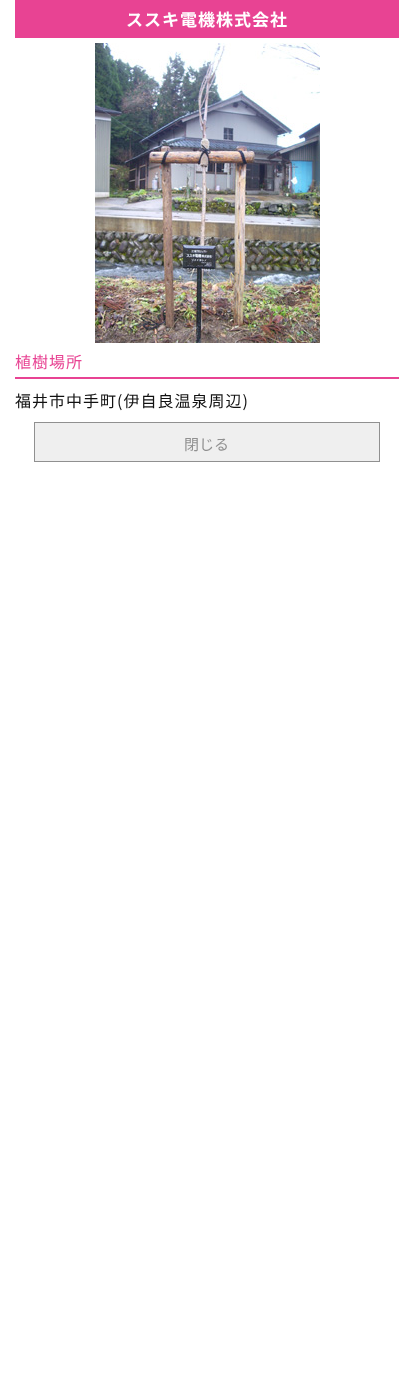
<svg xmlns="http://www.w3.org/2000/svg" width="414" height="1399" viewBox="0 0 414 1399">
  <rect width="100%" height="100%" fill="rgb(255,255,255)"/>
  <rect x="15" y="0" width="384" height="38" fill="rgb(232,67,147)"/>
  <text x="126" y="26" font-family="Noto Sans CJK JP" font-size="17" font-weight="bold" letter-spacing="1" fill="rgb(255,255,255)">ススキ電機株式会社</text>
  <image x="95" y="43" width="225" height="300" href="pic1.png"/>
  <rect x="15" y="377" width="384" height="2" fill="rgb(232,67,147)"/>
  <text x="15" y="368" font-family="Noto Sans CJK JP" font-size="16" letter-spacing="1" fill="rgb(232,67,147)">植樹場所</text>
  <text x="15" y="407" font-family="Noto Sans CJK JP" font-size="16" letter-spacing="1" fill="rgb(17,17,17)">福井市中手町(伊自良温泉周辺)</text>
  <rect x="34.5" y="422.5" width="345" height="39" fill="rgb(239,239,239)" stroke="rgb(144,144,144)"/>
  <text x="184" y="450" font-family="Noto Sans CJK JP" font-size="15" fill="rgb(144,144,144)">閉じる</text>
</svg>
